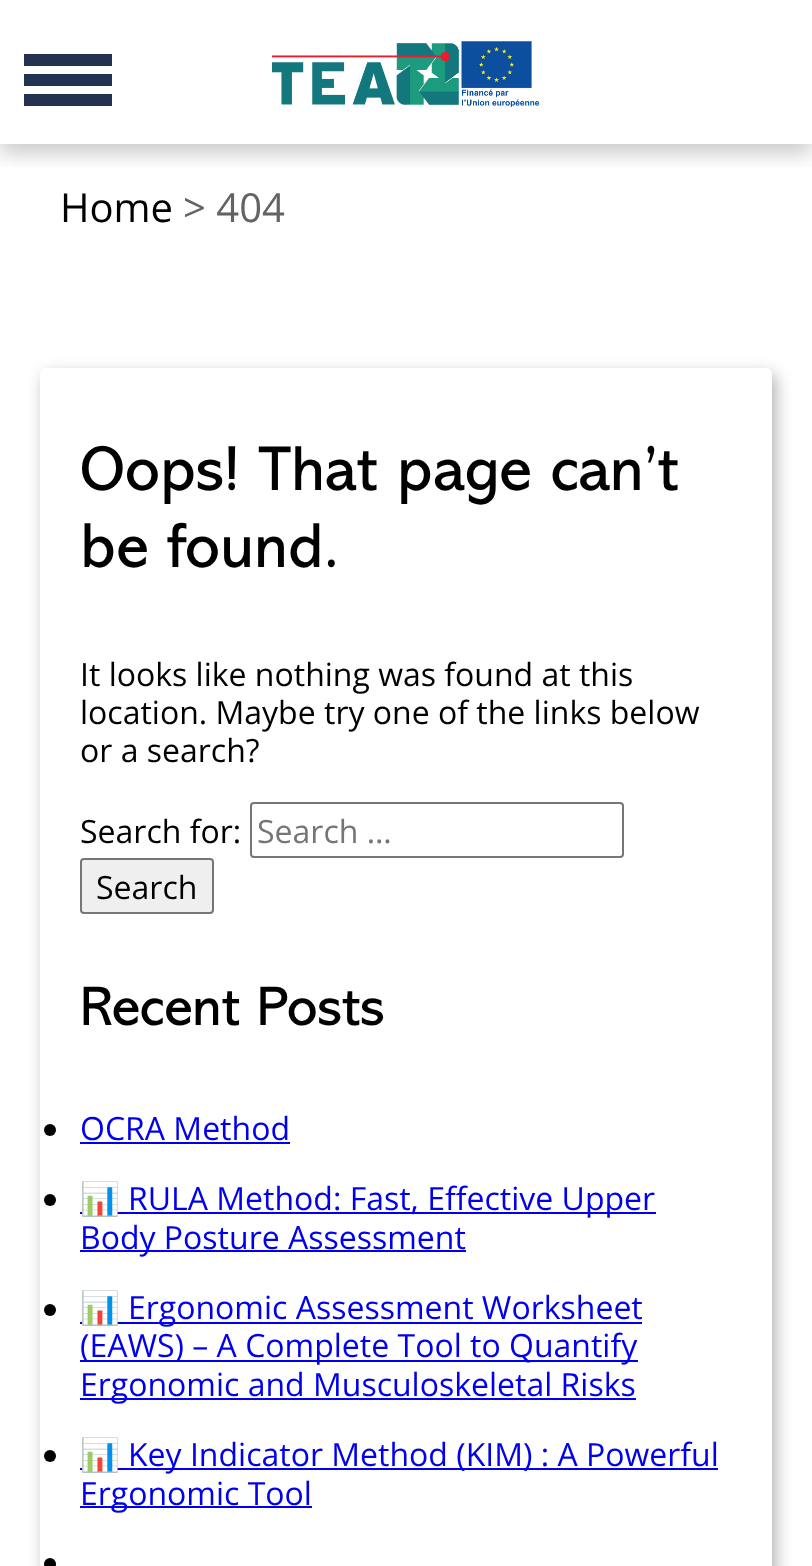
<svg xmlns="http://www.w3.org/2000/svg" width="812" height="1566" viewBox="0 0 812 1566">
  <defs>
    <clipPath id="clip1"><rect x="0" y="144" width="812" height="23"/></clipPath>
    <clipPath id="clip2"><path d="M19 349H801V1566H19ZM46 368H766C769.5 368 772 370.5 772 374V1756C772 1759.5 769.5 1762 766 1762H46C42.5 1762 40 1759.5 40 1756V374C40 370.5 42.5 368 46 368Z" clip-rule="evenodd"/></clipPath>
  </defs>
  <rect width="100%" height="100%" fill="rgb(255,255,255)"/>
  <g clip-path="url(#clip1)">
    <rect x="0" y="10" width="812" height="144" fill="rgba(0,0,0,0.2)" filter="blur(10px)"/>
  </g>
  <rect x="24" y="74" width="88" height="12" fill="rgb(36,49,81)"/>
  <rect x="24" y="54" width="88" height="12" fill="rgb(36,49,81)"/>
  <rect x="24" y="94" width="88" height="12" fill="rgb(36,49,81)"/>
  <image x="272" y="41" width="268" height="66" href="pic1.png"/>
  <text x="60" y="222" font-family="Open Sans" font-size="40" fill="rgb(0,0,0)">Home</text>
  <text x="183" y="222" font-family="Open Sans" font-size="40" fill="rgb(99,99,99)">&gt; 404</text>
  <g clip-path="url(#clip2)">
    <rect x="44" y="374" width="732" height="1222" rx="6" fill="rgba(0,0,0,0.3)" filter="blur(8px)"/>
  </g>
  <g font-family="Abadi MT" font-size="64" fill="rgb(0,0,0)">
    <text>
      <tspan x="80" y="490">Oops! That page can’t</tspan>
      <tspan x="80" y="567">be found.</tspan>
    </text>
  </g>
  <g font-family="Open Sans" font-size="32" fill="rgb(0,0,0)">
    <text>
      <tspan x="80" y="686">It looks like nothing was found at this</tspan>
      <tspan x="80" y="724">location. Maybe try one of the links below</tspan>
      <tspan x="80" y="762">or a search?</tspan>
    </text>
    <text x="80" y="843">Search for:</text>
  </g>
  <rect x="251" y="803" width="372" height="54" rx="3" fill="none" stroke="rgb(118,118,118)" stroke-width="2"/>
  <text x="257" y="843" font-family="Open Sans" font-size="32" fill="rgb(117,117,117)">Search …</text>
  <rect x="81" y="859" width="132" height="54" rx="3" fill="rgb(239,239,239)" stroke="rgb(118,118,118)" stroke-width="2"/>
  <text x="96" y="899" font-family="Open Sans" font-size="32" fill="rgb(0,0,0)">Search</text>
  <text x="80" y="1025" font-family="Abadi MT" font-size="56" fill="rgb(0,0,0)">Recent Posts</text>
  <circle cx="50" cy="1130" r="6" fill="rgb(0,0,0)"/>
  <text x="80" y="1140" font-family="Open Sans" font-size="32" fill="rgb(0,0,238)">OCRA Method</text>
  <rect x="80" y="1142" width="210" height="2" fill="rgb(0,0,238)"/>
  <circle cx="50" cy="1200" r="6" fill="rgb(0,0,0)"/>
  <rect x="80" y="1212" width="576" height="2" fill="rgb(0,0,238)"/>
  <text x="80" y="1210" font-family="Noto Color Emoji" font-size="32" fill="rgb(0,0,238)">📊</text>
  <text x="128" y="1210" font-family="Open Sans" font-size="32" fill="rgb(0,0,238)">RULA Method: Fast, Effective Upper</text>
  <rect x="80" y="1250" width="386" height="2" fill="rgb(0,0,238)"/>
  <text x="80" y="1249" font-family="Open Sans" font-size="32" fill="rgb(0,0,238)">Body Posture Assessment</text>
  <circle cx="50" cy="1310" r="6" fill="rgb(0,0,0)"/>
  <rect x="80" y="1322" width="562" height="2" fill="rgb(0,0,238)"/>
  <text x="80" y="1319" font-family="Noto Color Emoji" font-size="32" fill="rgb(0,0,238)">📊</text>
  <text x="128" y="1319" font-family="Open Sans" font-size="32" fill="rgb(0,0,238)">Ergonomic Assessment Worksheet</text>
  <rect x="80" y="1360" width="558" height="2" fill="rgb(0,0,238)"/>
  <text x="80" y="1357" font-family="Open Sans" font-size="32" fill="rgb(0,0,238)">(EAWS) – A Complete Tool to Quantify</text>
  <rect x="80" y="1398" width="556" height="2" fill="rgb(0,0,238)"/>
  <text x="80" y="1396" font-family="Open Sans" font-size="32" fill="rgb(0,0,238)">Ergonomic and Musculoskeletal Risks</text>
  <circle cx="50" cy="1456" r="6" fill="rgb(0,0,0)"/>
  <rect x="80" y="1468" width="638" height="2" fill="rgb(0,0,238)"/>
  <text x="80" y="1466" font-family="Noto Color Emoji" font-size="32" fill="rgb(0,0,238)">📊</text>
  <text x="128" y="1466" font-family="Open Sans" font-size="32" fill="rgb(0,0,238)">Key Indicator Method (KIM) : A Powerful</text>
  <rect x="80" y="1506" width="232" height="2" fill="rgb(0,0,238)"/>
  <text x="80" y="1505" font-family="Open Sans" font-size="32" fill="rgb(0,0,238)">Ergonomic Tool</text>
  <circle cx="50" cy="1564" r="6" fill="rgb(0,0,0)"/>
</svg>
